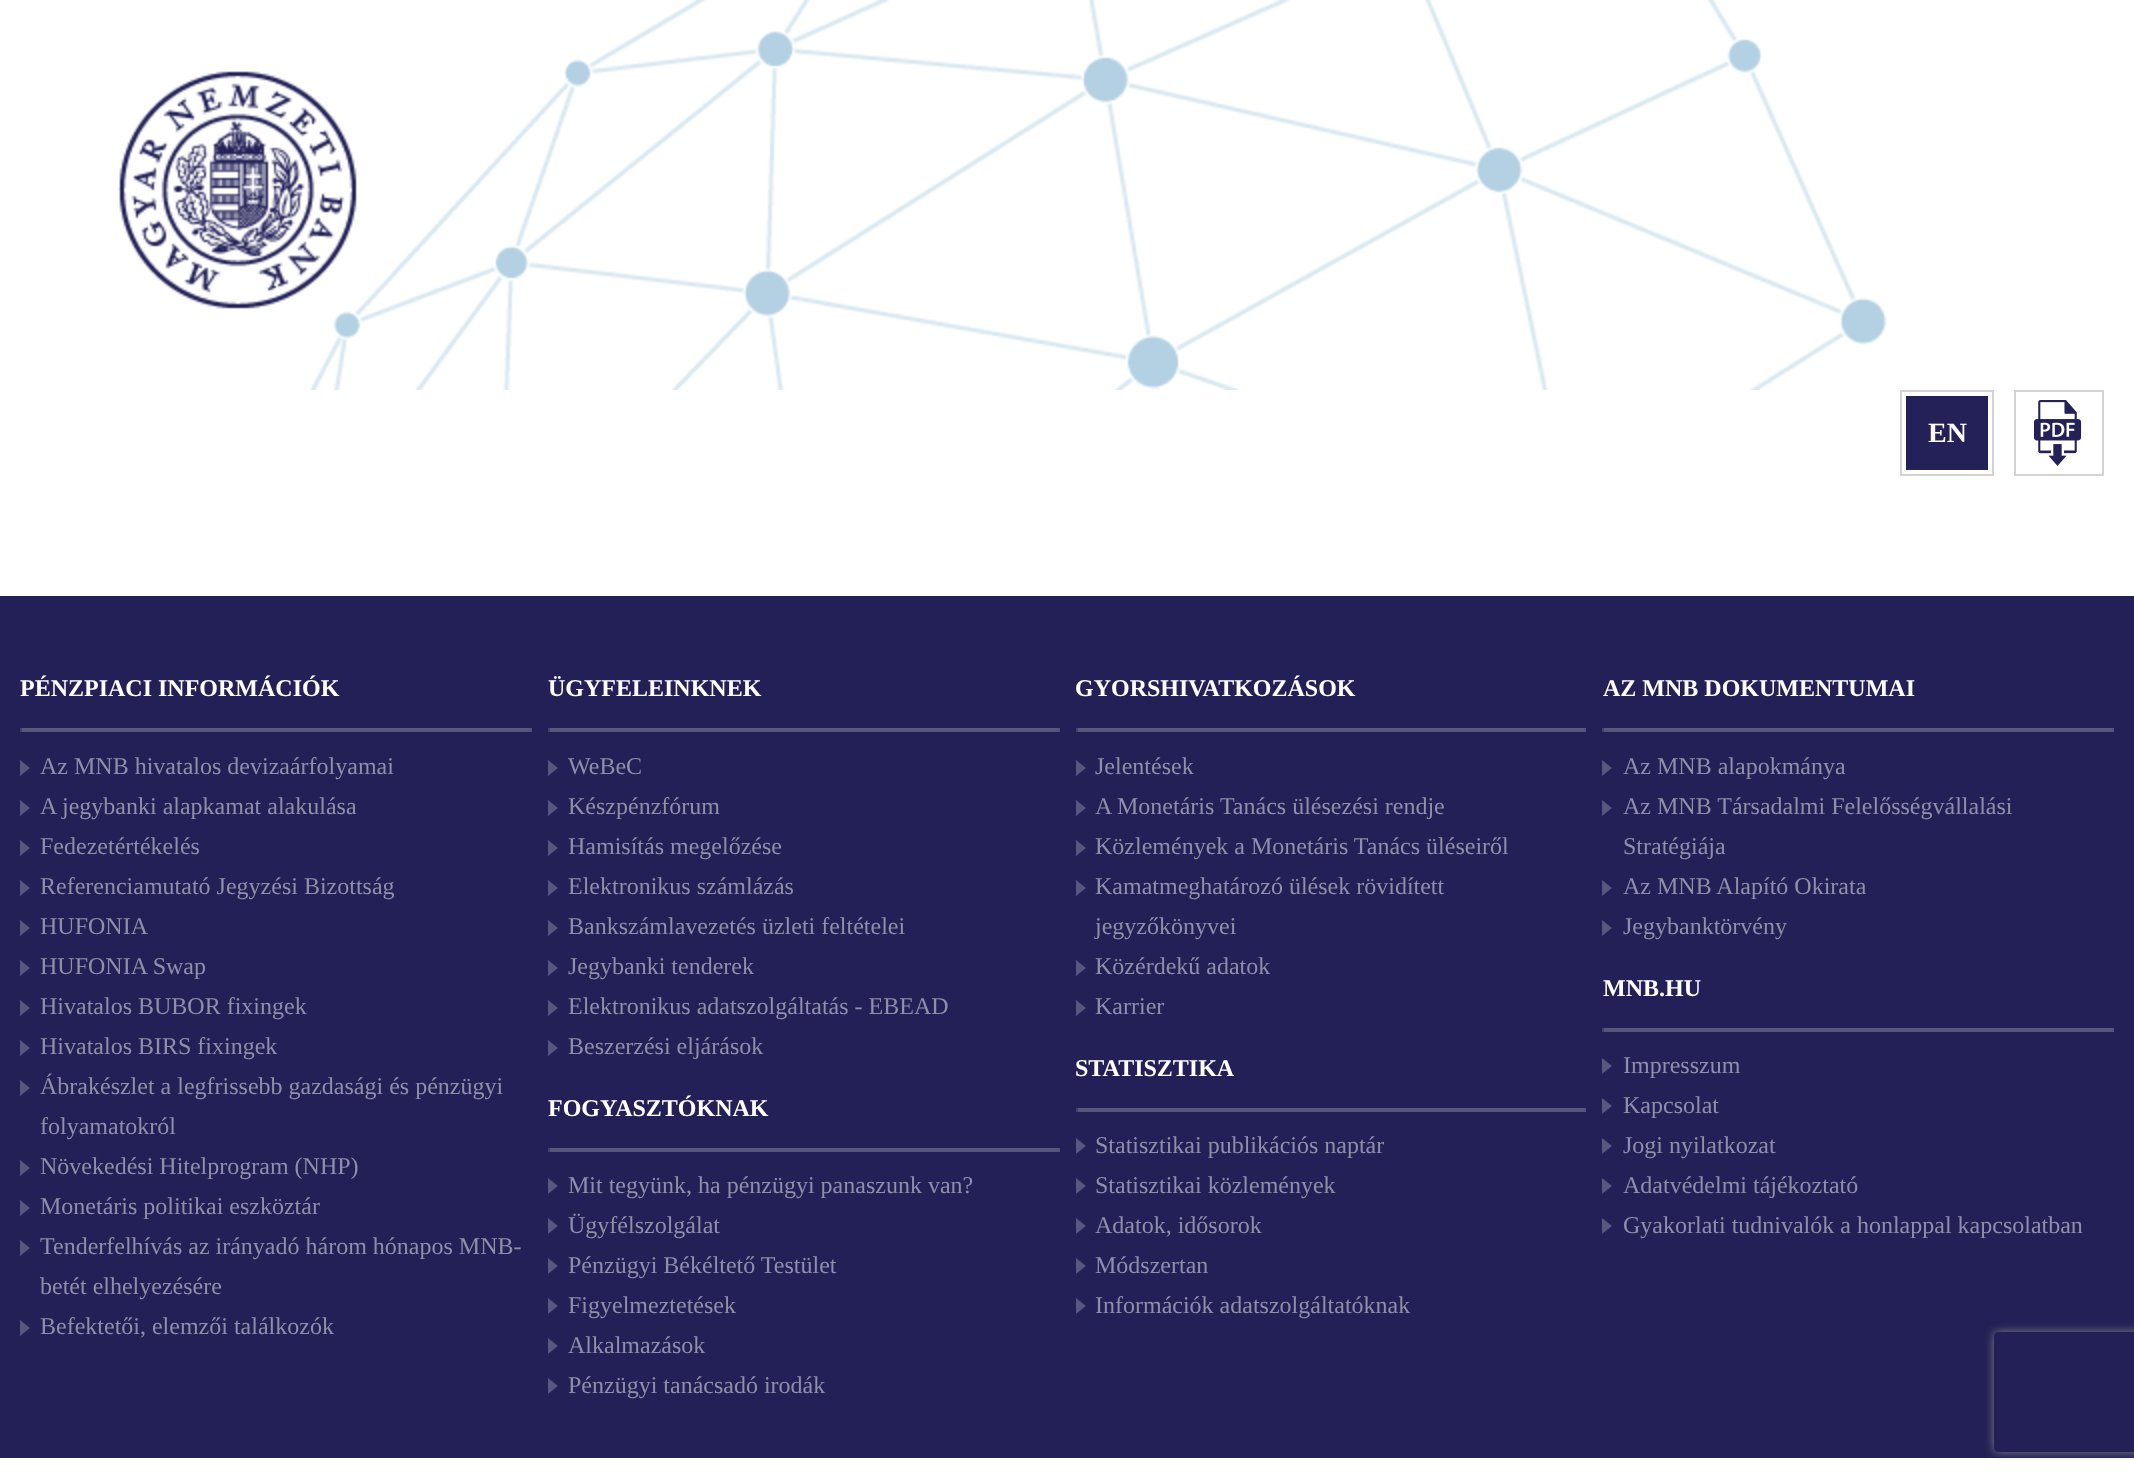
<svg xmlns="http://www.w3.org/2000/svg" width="2134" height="1480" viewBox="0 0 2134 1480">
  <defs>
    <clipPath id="clip1"><path d="M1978 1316H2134V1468H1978ZM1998 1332H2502C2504 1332 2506 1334 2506 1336V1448C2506 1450 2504 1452 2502 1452H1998C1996 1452 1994 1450 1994 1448V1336C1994 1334 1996 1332 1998 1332Z" clip-rule="evenodd"/></clipPath>
  </defs>
  <rect width="100%" height="100%" fill="rgb(255,255,255)"/>
  <image x="309" y="0" width="1578" height="390" href="pic1.png"/>
  <image x="118" y="71" width="239" height="238" href="pic2.png"/>
  <rect x="1901" y="391" width="92" height="84" fill="none" stroke="rgb(211,211,211)" stroke-width="2"/>
  <rect x="1906" y="396" width="82" height="74" fill="rgb(35,33,87)"/>
  <text x="1928" y="442" font-family="Liberation Serif" font-size="28" font-weight="bold" fill="rgb(255,255,255)">EN</text>
  <rect x="2015" y="391" width="88" height="84" fill="none" stroke="rgb(211,211,211)" stroke-width="2"/>
  <image x="2034" y="400" width="48" height="66" href="pic3.png"/>
  <rect x="0" y="596" width="2134" height="862" fill="rgb(34,32,86)"/>
  <text x="20" y="696" font-family="Liberation Serif" font-size="24" font-weight="bold" fill="rgb(255,255,255)">PÉNZPIACI INFORMÁCIÓK</text>
  <rect x="20" y="728" width="512" height="2" fill="rgb(89,88,128)"/>
  <rect x="530" y="728" width="2" height="4" fill="rgb(85,84,124)"/>
  <rect x="20" y="730" width="512" height="2" fill="rgb(85,84,124)"/>
  <rect x="20" y="728" width="2" height="4" fill="rgb(65,64,104)"/>
  <path d="M20 776V760L30 768Z" fill="rgb(88,87,128)"/>
  <text x="40" y="774" font-family="Liberation Serif" font-size="24" fill="rgb(144,143,170)">Az MNB hivatalos devizaárfolyamai</text>
  <path d="M20 816V800L30 808Z" fill="rgb(88,87,128)"/>
  <text x="40" y="814" font-family="Liberation Serif" font-size="24" fill="rgb(144,143,170)">A jegybanki alapkamat alakulása</text>
  <path d="M20 856V840L30 848Z" fill="rgb(88,87,128)"/>
  <text x="40" y="854" font-family="Liberation Serif" font-size="24" fill="rgb(144,143,170)">Fedezetértékelés</text>
  <path d="M20 896V880L30 888Z" fill="rgb(88,87,128)"/>
  <text x="40" y="894" font-family="Liberation Serif" font-size="24" fill="rgb(144,143,170)">Referenciamutató Jegyzési Bizottság</text>
  <path d="M20 936V920L30 928Z" fill="rgb(88,87,128)"/>
  <text x="40" y="934" font-family="Liberation Serif" font-size="24" fill="rgb(144,143,170)">HUFONIA</text>
  <path d="M20 976V960L30 968Z" fill="rgb(88,87,128)"/>
  <text x="40" y="974" font-family="Liberation Serif" font-size="24" fill="rgb(144,143,170)">HUFONIA Swap</text>
  <path d="M20 1016V1000L30 1008Z" fill="rgb(88,87,128)"/>
  <text x="40" y="1014" font-family="Liberation Serif" font-size="24" fill="rgb(144,143,170)">Hivatalos BUBOR fixingek</text>
  <path d="M20 1056V1040L30 1048Z" fill="rgb(88,87,128)"/>
  <text x="40" y="1054" font-family="Liberation Serif" font-size="24" fill="rgb(144,143,170)">Hivatalos BIRS fixingek</text>
  <path d="M20 1096V1080L30 1088Z" fill="rgb(88,87,128)"/>
  <g font-family="Liberation Serif" font-size="24" fill="rgb(144,143,170)">
    <text>
      <tspan x="40" y="1094">Ábrakészlet a legfrissebb gazdasági és pénzügyi</tspan>
      <tspan x="40" y="1134">folyamatokról</tspan>
    </text>
  </g>
  <path d="M20 1176V1160L30 1168Z" fill="rgb(88,87,128)"/>
  <text x="40" y="1174" font-family="Liberation Serif" font-size="24" fill="rgb(144,143,170)">Növekedési Hitelprogram (NHP)</text>
  <path d="M20 1216V1200L30 1208Z" fill="rgb(88,87,128)"/>
  <text x="40" y="1214" font-family="Liberation Serif" font-size="24" fill="rgb(144,143,170)">Monetáris politikai eszköztár</text>
  <path d="M20 1256V1240L30 1248Z" fill="rgb(88,87,128)"/>
  <g font-family="Liberation Serif" font-size="24" fill="rgb(144,143,170)">
    <text>
      <tspan x="40" y="1254">Tenderfelhívás az irányadó három hónapos MNB-</tspan>
      <tspan x="40" y="1294">betét elhelyezésére</tspan>
    </text>
  </g>
  <path d="M20 1336V1320L30 1328Z" fill="rgb(88,87,128)"/>
  <text x="40" y="1334" font-family="Liberation Serif" font-size="24" fill="rgb(144,143,170)">Befektetői, elemzői találkozók</text>
  <text x="548" y="696" font-family="Liberation Serif" font-size="24" font-weight="bold" fill="rgb(255,255,255)">ÜGYFELEINKNEK</text>
  <rect x="548" y="728" width="512" height="2" fill="rgb(89,88,128)"/>
  <rect x="1058" y="728" width="2" height="4" fill="rgb(85,84,124)"/>
  <rect x="548" y="730" width="512" height="2" fill="rgb(85,84,124)"/>
  <rect x="548" y="728" width="2" height="4" fill="rgb(65,64,104)"/>
  <path d="M548 776V760L558 768Z" fill="rgb(88,87,128)"/>
  <text x="568" y="774" font-family="Liberation Serif" font-size="24" fill="rgb(144,143,170)">WeBeC</text>
  <path d="M548 816V800L558 808Z" fill="rgb(88,87,128)"/>
  <text x="568" y="814" font-family="Liberation Serif" font-size="24" fill="rgb(144,143,170)">Készpénzfórum</text>
  <path d="M548 856V840L558 848Z" fill="rgb(88,87,128)"/>
  <text x="568" y="854" font-family="Liberation Serif" font-size="24" fill="rgb(144,143,170)">Hamisítás megelőzése</text>
  <path d="M548 896V880L558 888Z" fill="rgb(88,87,128)"/>
  <text x="568" y="894" font-family="Liberation Serif" font-size="24" fill="rgb(144,143,170)">Elektronikus számlázás</text>
  <path d="M548 936V920L558 928Z" fill="rgb(88,87,128)"/>
  <text x="568" y="934" font-family="Liberation Serif" font-size="24" fill="rgb(144,143,170)">Bankszámlavezetés üzleti feltételei</text>
  <path d="M548 976V960L558 968Z" fill="rgb(88,87,128)"/>
  <text x="568" y="974" font-family="Liberation Serif" font-size="24" fill="rgb(144,143,170)">Jegybanki tenderek</text>
  <path d="M548 1016V1000L558 1008Z" fill="rgb(88,87,128)"/>
  <text x="568" y="1014" font-family="Liberation Serif" font-size="24" fill="rgb(144,143,170)">Elektronikus adatszolgáltatás - EBEAD</text>
  <path d="M548 1056V1040L558 1048Z" fill="rgb(88,87,128)"/>
  <text x="568" y="1054" font-family="Liberation Serif" font-size="24" fill="rgb(144,143,170)">Beszerzési eljárások</text>
  <text x="548" y="1116" font-family="Liberation Serif" font-size="24" font-weight="bold" fill="rgb(255,255,255)">FOGYASZTÓKNAK</text>
  <rect x="548" y="1148" width="512" height="2" fill="rgb(89,88,128)"/>
  <rect x="1058" y="1148" width="2" height="4" fill="rgb(85,84,124)"/>
  <rect x="548" y="1150" width="512" height="2" fill="rgb(85,84,124)"/>
  <rect x="548" y="1148" width="2" height="4" fill="rgb(65,64,104)"/>
  <path d="M548 1194V1178L558 1186Z" fill="rgb(88,87,128)"/>
  <text x="568" y="1193" font-family="Liberation Serif" font-size="24" fill="rgb(144,143,170)">Mit tegyünk, ha pénzügyi panaszunk van?</text>
  <path d="M548 1234V1218L558 1226Z" fill="rgb(88,87,128)"/>
  <text x="568" y="1233" font-family="Liberation Serif" font-size="24" fill="rgb(144,143,170)">Ügyfélszolgálat</text>
  <path d="M548 1274V1258L558 1266Z" fill="rgb(88,87,128)"/>
  <text x="568" y="1273" font-family="Liberation Serif" font-size="24" fill="rgb(144,143,170)">Pénzügyi Békéltető Testület</text>
  <path d="M548 1314V1298L558 1306Z" fill="rgb(88,87,128)"/>
  <text x="568" y="1313" font-family="Liberation Serif" font-size="24" fill="rgb(144,143,170)">Figyelmeztetések</text>
  <path d="M548 1354V1338L558 1346Z" fill="rgb(88,87,128)"/>
  <text x="568" y="1353" font-family="Liberation Serif" font-size="24" fill="rgb(144,143,170)">Alkalmazások</text>
  <path d="M548 1394V1378L558 1386Z" fill="rgb(88,87,128)"/>
  <text x="568" y="1393" font-family="Liberation Serif" font-size="24" fill="rgb(144,143,170)">Pénzügyi tanácsadó irodák</text>
  <text x="1075" y="696" font-family="Liberation Serif" font-size="24" font-weight="bold" fill="rgb(255,255,255)">GYORSHIVATKOZÁSOK</text>
  <rect x="1076" y="728" width="510" height="2" fill="rgb(89,88,128)"/>
  <rect x="1584" y="728" width="2" height="4" fill="rgb(85,84,124)"/>
  <rect x="1076" y="730" width="510" height="2" fill="rgb(85,84,124)"/>
  <rect x="1076" y="728" width="2" height="4" fill="rgb(65,64,104)"/>
  <path d="M1076 776V760L1086 768Z" fill="rgb(88,87,128)"/>
  <text x="1095" y="774" font-family="Liberation Serif" font-size="24" fill="rgb(144,143,170)">Jelentések</text>
  <path d="M1076 816V800L1086 808Z" fill="rgb(88,87,128)"/>
  <text x="1095" y="814" font-family="Liberation Serif" font-size="24" fill="rgb(144,143,170)">A Monetáris Tanács ülésezési rendje</text>
  <path d="M1076 856V840L1086 848Z" fill="rgb(88,87,128)"/>
  <text x="1095" y="854" font-family="Liberation Serif" font-size="24" fill="rgb(144,143,170)">Közlemények a Monetáris Tanács üléseiről</text>
  <path d="M1076 896V880L1086 888Z" fill="rgb(88,87,128)"/>
  <g font-family="Liberation Serif" font-size="24" fill="rgb(144,143,170)">
    <text>
      <tspan x="1095" y="894">Kamatmeghatározó ülések rövidített</tspan>
      <tspan x="1095" y="934">jegyzőkönyvei</tspan>
    </text>
  </g>
  <path d="M1076 976V960L1086 968Z" fill="rgb(88,87,128)"/>
  <text x="1095" y="974" font-family="Liberation Serif" font-size="24" fill="rgb(144,143,170)">Közérdekű adatok</text>
  <path d="M1076 1016V1000L1086 1008Z" fill="rgb(88,87,128)"/>
  <text x="1095" y="1014" font-family="Liberation Serif" font-size="24" fill="rgb(144,143,170)">Karrier</text>
  <text x="1075" y="1076" font-family="Liberation Serif" font-size="24" font-weight="bold" fill="rgb(255,255,255)">STATISZTIKA</text>
  <rect x="1076" y="1108" width="510" height="2" fill="rgb(89,88,128)"/>
  <rect x="1584" y="1108" width="2" height="4" fill="rgb(85,84,124)"/>
  <rect x="1076" y="1110" width="510" height="2" fill="rgb(85,84,124)"/>
  <rect x="1076" y="1108" width="2" height="4" fill="rgb(65,64,104)"/>
  <path d="M1076 1154V1138L1086 1146Z" fill="rgb(88,87,128)"/>
  <text x="1095" y="1153" font-family="Liberation Serif" font-size="24" fill="rgb(144,143,170)">Statisztikai publikációs naptár</text>
  <path d="M1076 1194V1178L1086 1186Z" fill="rgb(88,87,128)"/>
  <text x="1095" y="1193" font-family="Liberation Serif" font-size="24" fill="rgb(144,143,170)">Statisztikai közlemények</text>
  <path d="M1076 1234V1218L1086 1226Z" fill="rgb(88,87,128)"/>
  <text x="1095" y="1233" font-family="Liberation Serif" font-size="24" fill="rgb(144,143,170)">Adatok, idősorok</text>
  <path d="M1076 1274V1258L1086 1266Z" fill="rgb(88,87,128)"/>
  <text x="1095" y="1273" font-family="Liberation Serif" font-size="24" fill="rgb(144,143,170)">Módszertan</text>
  <path d="M1076 1314V1298L1086 1306Z" fill="rgb(88,87,128)"/>
  <text x="1095" y="1313" font-family="Liberation Serif" font-size="24" fill="rgb(144,143,170)">Információk adatszolgáltatóknak</text>
  <text x="1603" y="696" font-family="Liberation Serif" font-size="24" font-weight="bold" fill="rgb(255,255,255)">AZ MNB DOKUMENTUMAI</text>
  <rect x="1602" y="728" width="512" height="2" fill="rgb(89,88,128)"/>
  <rect x="2112" y="728" width="2" height="4" fill="rgb(85,84,124)"/>
  <rect x="1602" y="730" width="512" height="2" fill="rgb(85,84,124)"/>
  <rect x="1602" y="728" width="2" height="4" fill="rgb(65,64,104)"/>
  <path d="M1602 776V760L1612 768Z" fill="rgb(88,87,128)"/>
  <text x="1623" y="774" font-family="Liberation Serif" font-size="24" fill="rgb(144,143,170)">Az MNB alapokmánya</text>
  <path d="M1602 816V800L1612 808Z" fill="rgb(88,87,128)"/>
  <g font-family="Liberation Serif" font-size="24" fill="rgb(144,143,170)">
    <text>
      <tspan x="1623" y="814">Az MNB Társadalmi Felelősségvállalási</tspan>
      <tspan x="1623" y="854">Stratégiája</tspan>
    </text>
  </g>
  <path d="M1602 896V880L1612 888Z" fill="rgb(88,87,128)"/>
  <text x="1623" y="894" font-family="Liberation Serif" font-size="24" fill="rgb(144,143,170)">Az MNB Alapító Okirata</text>
  <path d="M1602 936V920L1612 928Z" fill="rgb(88,87,128)"/>
  <text x="1623" y="934" font-family="Liberation Serif" font-size="24" fill="rgb(144,143,170)">Jegybanktörvény</text>
  <text x="1603" y="996" font-family="Liberation Serif" font-size="24" font-weight="bold" fill="rgb(255,255,255)">MNB.HU</text>
  <rect x="1602" y="1028" width="512" height="2" fill="rgb(89,88,128)"/>
  <rect x="2112" y="1028" width="2" height="4" fill="rgb(85,84,124)"/>
  <rect x="1602" y="1030" width="512" height="2" fill="rgb(85,84,124)"/>
  <rect x="1602" y="1028" width="2" height="4" fill="rgb(65,64,104)"/>
  <path d="M1602 1074V1058L1612 1066Z" fill="rgb(88,87,128)"/>
  <text x="1623" y="1073" font-family="Liberation Serif" font-size="24" fill="rgb(144,143,170)">Impresszum</text>
  <path d="M1602 1114V1098L1612 1106Z" fill="rgb(88,87,128)"/>
  <text x="1623" y="1113" font-family="Liberation Serif" font-size="24" fill="rgb(144,143,170)">Kapcsolat</text>
  <path d="M1602 1154V1138L1612 1146Z" fill="rgb(88,87,128)"/>
  <text x="1623" y="1153" font-family="Liberation Serif" font-size="24" fill="rgb(144,143,170)">Jogi nyilatkozat</text>
  <path d="M1602 1194V1178L1612 1186Z" fill="rgb(88,87,128)"/>
  <text x="1623" y="1193" font-family="Liberation Serif" font-size="24" fill="rgb(144,143,170)">Adatvédelmi tájékoztató</text>
  <path d="M1602 1234V1218L1612 1226Z" fill="rgb(88,87,128)"/>
  <text x="1623" y="1233" font-family="Liberation Serif" font-size="24" fill="rgb(144,143,170)">Gyakorlati tudnivalók a honlappal kapcsolatban</text>
  <g clip-path="url(#clip1)">
    <rect x="1994" y="1332" width="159" height="120" rx="4" fill="rgb(128,128,128)" filter="blur(5px)"/>
  </g>
</svg>
